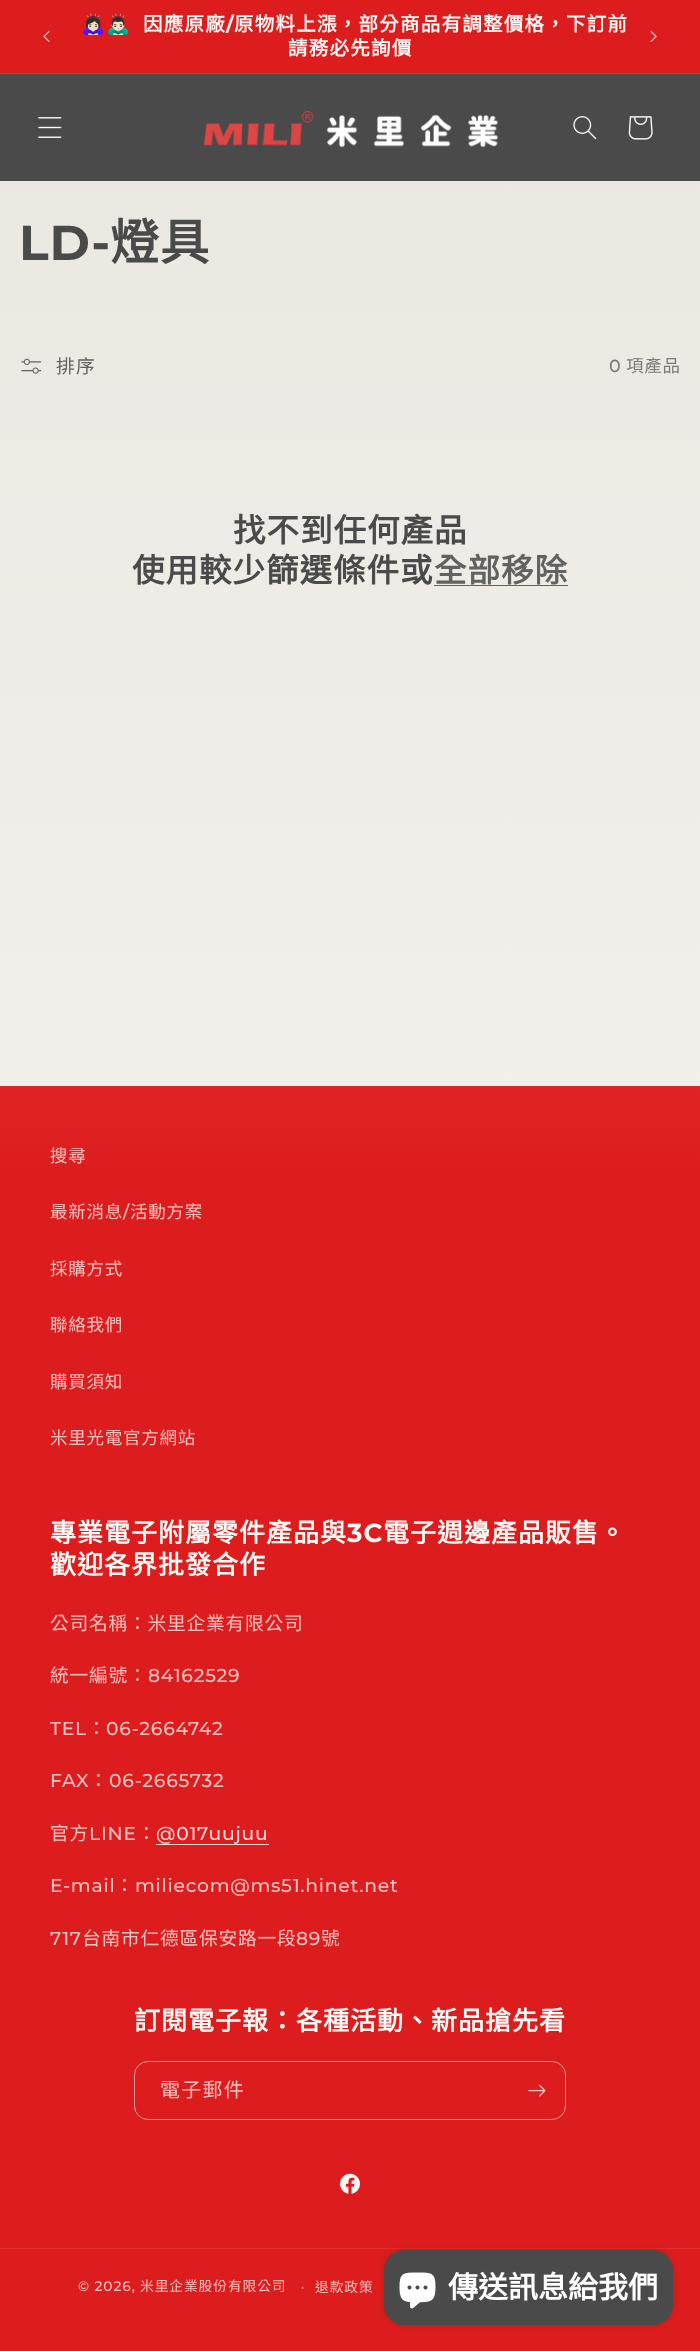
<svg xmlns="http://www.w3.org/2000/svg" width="700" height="2351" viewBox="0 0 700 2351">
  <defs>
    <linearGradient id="g1" gradientUnits="userSpaceOnUse" x1="350" y1="0" x2="350" y2="2351"><stop offset="0" stop-color="rgb(234,231,224)"/><stop offset="0.97" stop-color="rgb(250,249,246)"/></linearGradient>
    <radialGradient id="g2" gradientUnits="userSpaceOnUse" cx="0" cy="0" r="1" gradientTransform="matrix(495 0 0 1663 350 1176)"><stop offset="0" stop-color="rgb(118,118,118)"/><stop offset="0.56" stop-color="rgb(74,74,74)"/></radialGradient>
    <linearGradient id="g3" gradientUnits="userSpaceOnUse" x1="350" y1="2351" x2="350" y2="0"><stop offset="0.5" stop-color="rgb(221,29,29)"/><stop offset="1" stop-color="rgb(255,118,118)"/></linearGradient>
  </defs>
  <rect width="100%" height="100%" fill="rgb(255,255,255)"/>
  <rect x="0" y="181" width="700" height="905" fill="url(#g1)"/>
  <rect x="0" y="0" width="700" height="73" fill="rgb(221,29,29)"/>
  <rect x="0" y="73" width="700" height="1" fill="rgb(224,47,46)"/>
  <image x="43" y="31" width="7" height="11" href="pic1.png"/>
  <text x="81" y="31" font-family="Noto Color Emoji" font-size="19.5" font-weight="bold" letter-spacing="1.25" fill="rgb(250,249,246)">🙇🏻‍♀️🙇🏻‍♂️</text>
  <text x="143" y="31" font-family="Noto Sans CJK TC" font-size="19.5" font-weight="bold" letter-spacing="1.25" fill="rgb(250,249,246)">因應原廠</text>
  <text x="226" y="31" font-family="Montserrat" font-size="19.5" font-weight="bold" letter-spacing="1.25" fill="rgb(250,249,246)">/</text>
  <g font-family="Noto Sans CJK TC" font-size="19.5" font-weight="bold" letter-spacing="1.25" fill="rgb(250,249,246)">
    <text x="234" y="31">原物料上漲，部分商品有調整價格，下訂前</text>
    <text x="288" y="55">請務必先詢價</text>
  </g>
  <image x="650" y="31" width="7" height="11" href="pic2.png"/>
  <rect x="0" y="74" width="700" height="107" fill="url(#g2)"/>
  <image x="38" y="117" width="24" height="21" href="pic3.png"/>
  <image x="203" y="111" width="295" height="37" href="pic4.png"/>
  <image x="573" y="116" width="24" height="24" href="pic5.png"/>
  <image x="628" y="116" width="25" height="24" href="pic6.png"/>
  <text x="19" y="260" font-family="Montserrat" font-size="49" font-weight="bold" letter-spacing="1" fill="rgb(74,74,74)">LD-</text>
  <text x="110" y="260" font-family="Noto Sans CJK TC" font-size="49" font-weight="bold" letter-spacing="1" fill="rgb(74,74,74)">燈具</text>
  <image x="21" y="358" width="21" height="16" href="pic7.png"/>
  <text x="56" y="373" font-family="Noto Sans CJK TC" font-size="18.75" letter-spacing="1.25" fill="rgb(98,98,97)">排序</text>
  <text x="609" y="372" font-family="Montserrat" font-size="17.5" font-weight="500" letter-spacing="0.75" fill="rgb(123,122,120)">0</text>
  <text x="626" y="372" font-family="Noto Sans CJK TC" font-size="17.5" letter-spacing="0.75" fill="rgb(123,122,120)">項產品</text>
  <g font-family="Noto Sans CJK TC" font-size="32.5" font-weight="bold" letter-spacing="1" fill="rgb(74,74,74)">
    <text x="233" y="542">找不到任何產品</text>
    <text x="132" y="582">使用較少篩選條件或</text>
  </g>
  <text x="434" y="582" font-family="Noto Sans CJK TC" font-size="32.5" font-weight="bold" letter-spacing="1" fill="rgb(98,98,97)">全部移除</text>
  <rect x="434" y="585" width="134" height="1" fill="rgb(99,98,97)"/>
  <rect x="0" y="1086" width="700" height="1265" fill="url(#g3)"/>
  <g font-family="Noto Sans CJK TC" font-size="17.5" letter-spacing="0.75" fill="rgb(243,194,192)">
    <text x="50" y="1162">搜尋</text>
    <text x="50" y="1218">最新消息</text>
  </g>
  <text x="123" y="1218" font-family="Montserrat" font-size="17.5" font-weight="500" letter-spacing="0.75" fill="rgb(243,194,192)">/</text>
  <g font-family="Noto Sans CJK TC" font-size="17.5" letter-spacing="0.75" fill="rgb(243,194,192)">
    <text x="130" y="1218">活動方案</text>
    <text x="50" y="1275">採購方式</text>
    <text x="50" y="1331">聯絡我們</text>
    <text x="50" y="1388">購買須知</text>
    <text x="50" y="1444">米里光電官方網站</text>
  </g>
  <text x="50" y="1542" font-family="Noto Sans CJK TC" font-size="26" font-weight="bold" letter-spacing="1" fill="rgb(250,249,246)">專業電子附屬零件產品與</text>
  <text x="347" y="1542" font-family="Montserrat" font-size="26" font-weight="bold" letter-spacing="1" fill="rgb(250,249,246)">3C</text>
  <g font-family="Noto Sans CJK TC" font-size="26" font-weight="bold" letter-spacing="1" fill="rgb(250,249,246)">
    <text x="383" y="1542">電子週邊產品販售。</text>
    <text x="50" y="1574">歡迎各界批發合作</text>
  </g>
  <g font-family="Noto Sans CJK TC" font-size="18.75" letter-spacing="0.75" fill="rgb(243,194,192)">
    <text x="50" y="1630">公司名稱：米里企業有限公司</text>
    <text x="50" y="1682">統一編號：</text>
  </g>
  <g font-family="Montserrat" font-size="18.75" font-weight="500" letter-spacing="0.75" fill="rgb(243,194,192)">
    <text x="148" y="1682">84162529</text>
    <text x="50" y="1735">TEL</text>
  </g>
  <text x="87" y="1735" font-family="Noto Sans CJK TC" font-size="18.75" letter-spacing="0.75" fill="rgb(243,194,192)">：</text>
  <g font-family="Montserrat" font-size="18.75" font-weight="500" letter-spacing="0.75" fill="rgb(243,194,192)">
    <text x="106" y="1735">06-2664742</text>
    <text x="50" y="1787">FAX</text>
  </g>
  <text x="89" y="1787" font-family="Noto Sans CJK TC" font-size="18.75" letter-spacing="0.75" fill="rgb(243,194,192)">：</text>
  <text x="109" y="1787" font-family="Montserrat" font-size="18.75" font-weight="500" letter-spacing="0.75" fill="rgb(243,194,192)">06-2665732</text>
  <text x="50" y="1840" font-family="Noto Sans CJK TC" font-size="18.75" letter-spacing="0.75" fill="rgb(243,194,192)">官方</text>
  <text x="89" y="1840" font-family="Montserrat" font-size="18.75" font-weight="500" letter-spacing="0.75" fill="rgb(243,194,192)">LINE</text>
  <text x="137" y="1840" font-family="Noto Sans CJK TC" font-size="18.75" letter-spacing="0.75" fill="rgb(243,194,192)">：</text>
  <text x="156" y="1840" font-family="Montserrat" font-size="18.75" font-weight="500" letter-spacing="0.75" fill="rgb(248,218,214)">@017uujuu</text>
  <rect x="156" y="1844" width="113" height="1" fill="rgb(248,218,214)"/>
  <text x="50" y="1892" font-family="Montserrat" font-size="18.75" font-weight="500" letter-spacing="0.75" fill="rgb(243,194,192)">E-mail</text>
  <text x="115" y="1892" font-family="Noto Sans CJK TC" font-size="18.75" letter-spacing="0.75" fill="rgb(243,194,192)">：</text>
  <g font-family="Montserrat" font-size="18.75" font-weight="500" letter-spacing="0.75" fill="rgb(243,194,192)">
    <text x="135" y="1892">miliecom@ms51.hinet.net</text>
    <text x="50" y="1945">717</text>
  </g>
  <text x="82" y="1945" font-family="Noto Sans CJK TC" font-size="18.75" letter-spacing="0.75" fill="rgb(243,194,192)">台南市仁德區保安路一段</text>
  <text x="296" y="1945" font-family="Montserrat" font-size="18.75" font-weight="500" letter-spacing="0.75" fill="rgb(243,194,192)">89</text>
  <text x="321" y="1945" font-family="Noto Sans CJK TC" font-size="18.75" letter-spacing="0.75" fill="rgb(243,194,192)">號</text>
  <text x="134" y="2030" font-family="Noto Sans CJK TC" font-size="26" font-weight="bold" letter-spacing="1" fill="rgb(250,249,246)">訂閱電子報：各種活動、新品搶先看</text>
  <rect x="134.5" y="2061.5" width="431" height="58" rx="13.5" fill="none" stroke="rgb(237,150,148)"/>
  <text x="160" y="2097" font-family="Noto Sans CJK TC" font-size="20" letter-spacing="1.25" fill="rgb(243,194,192)">電子郵件</text>
  <image x="528" y="2084" width="18" height="13" href="pic8.png"/>
  <image x="340" y="2173" width="20" height="21" href="pic9.png"/>
  <rect x="0" y="2248" width="700" height="1" fill="rgb(223,47,46)"/>
  <text x="78" y="2291" font-family="Montserrat" font-size="13.75" font-weight="500" letter-spacing="0.9" fill="rgb(243,194,192)">© 2026,</text>
  <text x="140" y="2291" font-family="Noto Sans CJK TC" font-size="13.75" letter-spacing="0.9" fill="rgb(243,194,192)">米里企業股份有限公司</text>
  <text x="301" y="2291" font-family="Montserrat" font-size="12" font-weight="500" letter-spacing="0.9" fill="rgb(243,194,192)">·</text>
  <text x="315" y="2292" font-family="Noto Sans CJK TC" font-size="13.75" letter-spacing="0.9" fill="rgb(243,194,192)">退款政策</text>
  <rect x="384" y="2250" width="289" height="75" rx="20" fill="rgba(0,0,0,0.15)" filter="blur(3px)"/>
  <rect x="384" y="2250" width="289" height="75" rx="20" fill="rgb(74,74,74)"/>
  <image x="399" y="2272" width="37" height="37" href="pic10.png"/>
  <text x="448" y="2298" font-family="Noto Sans CJK TC" font-size="30" font-weight="bold" fill="rgb(255,255,255)">傳送訊息給我們</text>
</svg>
